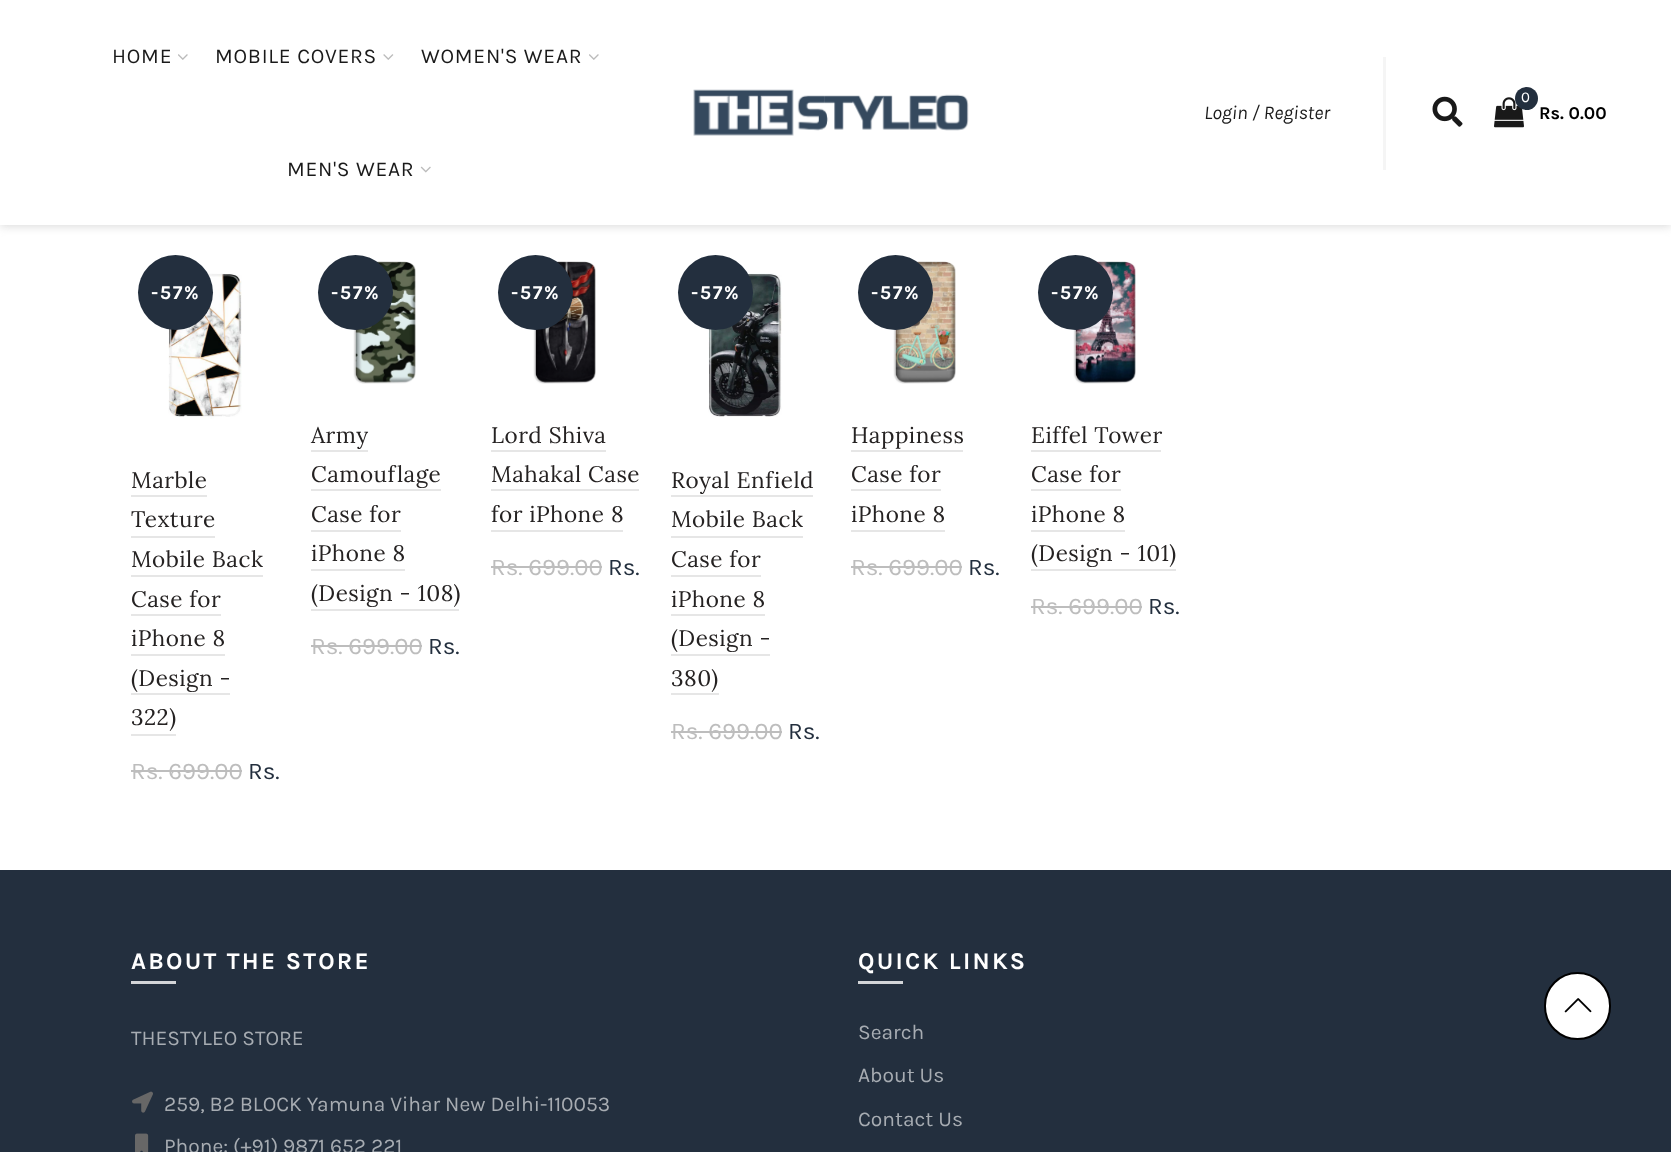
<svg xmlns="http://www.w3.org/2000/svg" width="1671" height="1152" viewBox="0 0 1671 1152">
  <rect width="100%" height="100%" fill="rgb(255,255,255)"/>
  <rect x="0" y="2" width="1671" height="225" fill="rgba(190,190,190,0.5)" filter="blur(4px)"/>
  <rect x="0" y="0" width="1671" height="225" fill="rgb(255,255,255)"/>
  <text x="112" y="63" font-family="Karla" font-size="21" letter-spacing="0.75" fill="rgb(26,26,26)">HOME</text>
  <image x="178" y="54" width="10" height="6" href="pic1.png"/>
  <text x="215" y="63" font-family="Karla" font-size="21" letter-spacing="0.75" fill="rgb(26,26,26)">MOBILE COVERS</text>
  <image x="383" y="54" width="11" height="6" href="pic2.png"/>
  <text x="421" y="63" font-family="Karla" font-size="21" letter-spacing="0.75" fill="rgb(26,26,26)">WOMEN'S WEAR</text>
  <image x="589" y="54" width="10" height="6" href="pic1.png"/>
  <text x="287" y="176" font-family="Karla" font-size="21" letter-spacing="0.75" fill="rgb(26,26,26)">MEN'S WEAR</text>
  <image x="420" y="166" width="11" height="7" href="pic3.png"/>
  <image x="693" y="89" width="276" height="47" href="pic4.png"/>
  <rect x="1383" y="57" width="3" height="113" fill="rgb(245,245,245)"/>
  <text x="1204" y="119" font-family="Karla" font-size="19.5" font-style="italic" fill="rgb(26,26,26)">Login / Register</text>
  <image x="1432" y="96" width="31" height="31" href="pic5.png"/>
  <image x="1494" y="97" width="30" height="31" href="pic6.png"/>
  <circle cx="1526.5" cy="98.5" r="11.5" fill="rgb(35,47,62)"/>
  <text x="1521" y="102" font-family="Karla" font-size="15" fill="rgb(255,255,255)">0</text>
  <text x="1539" y="119" font-family="Karla" font-size="18" font-weight="bold" fill="rgb(0,0,0)">Rs. 0.00</text>
  <image x="168" y="273" width="74" height="146" href="pic7.png"/>
  <circle cx="175.5" cy="292.5" r="37.5" fill="rgb(35,47,62)"/>
  <text x="151" y="299" font-family="Karla" font-size="19.5" font-weight="bold" letter-spacing="1.5" fill="rgb(255,255,255)">-57%</text>
  <text x="131" y="488" font-family="Lora" font-size="22.5" letter-spacing="0.5" fill="rgb(37,34,34)">Marble</text>
  <rect x="131" y="495" width="76" height="2" fill="rgb(230,230,230)"/>
  <text x="131" y="527" font-family="Lora" font-size="22.5" letter-spacing="0.5" fill="rgb(37,34,34)">Texture</text>
  <rect x="131" y="536" width="84" height="2" fill="rgb(230,230,230)"/>
  <text x="131" y="567" font-family="Lora" font-size="22.5" letter-spacing="0.5" fill="rgb(37,34,34)">Mobile Back</text>
  <rect x="131" y="575" width="132" height="2" fill="rgb(230,230,230)"/>
  <text x="131" y="607" font-family="Lora" font-size="22.5" letter-spacing="0.5" fill="rgb(37,34,34)">Case for</text>
  <rect x="131" y="614" width="90" height="2" fill="rgb(230,230,230)"/>
  <text x="131" y="646" font-family="Lora" font-size="22.5" letter-spacing="0.5" fill="rgb(37,34,34)">iPhone 8</text>
  <rect x="131" y="654" width="94" height="2" fill="rgb(230,230,230)"/>
  <text x="131" y="686" font-family="Lora" font-size="22.5" letter-spacing="0.5" fill="rgb(37,34,34)">(Design -</text>
  <rect x="131" y="693" width="99" height="2" fill="rgb(230,230,230)"/>
  <text x="131" y="725" font-family="Lora" font-size="22.5" letter-spacing="0.5" fill="rgb(37,34,34)">322)</text>
  <rect x="131" y="734" width="45" height="2" fill="rgb(230,230,230)"/>
  <text x="131" y="779" font-family="Karla" font-size="24" fill="rgb(189,189,189)">Rs. 699.00</text>
  <rect x="131" y="770" width="111" height="2" fill="rgb(189,189,189)"/>
  <text x="248" y="779" font-family="Karla" font-size="24" fill="rgb(35,47,62)">Rs.</text>
  <image x="353" y="261" width="63" height="123" href="pic8.png"/>
  <circle cx="355.5" cy="292.5" r="37.5" fill="rgb(35,47,62)"/>
  <text x="331" y="299" font-family="Karla" font-size="19.5" font-weight="bold" letter-spacing="1.5" fill="rgb(255,255,255)">-57%</text>
  <text x="311" y="443" font-family="Lora" font-size="22.5" letter-spacing="0.5" fill="rgb(37,34,34)">Army</text>
  <rect x="311" y="450" width="57" height="2" fill="rgb(230,230,230)"/>
  <text x="311" y="482" font-family="Lora" font-size="22.5" letter-spacing="0.5" fill="rgb(37,34,34)">Camouflage</text>
  <rect x="311" y="489" width="130" height="2" fill="rgb(230,230,230)"/>
  <text x="311" y="522" font-family="Lora" font-size="22.5" letter-spacing="0.5" fill="rgb(37,34,34)">Case for</text>
  <rect x="311" y="530" width="90" height="2" fill="rgb(230,230,230)"/>
  <text x="311" y="561" font-family="Lora" font-size="22.5" letter-spacing="0.5" fill="rgb(37,34,34)">iPhone 8</text>
  <rect x="311" y="569" width="94" height="2" fill="rgb(230,230,230)"/>
  <text x="311" y="601" font-family="Lora" font-size="22.5" letter-spacing="0.5" fill="rgb(37,34,34)">(Design - 108)</text>
  <rect x="311" y="609" width="148" height="2" fill="rgb(230,230,230)"/>
  <text x="311" y="654" font-family="Karla" font-size="24" fill="rgb(189,189,189)">Rs. 699.00</text>
  <rect x="311" y="645" width="111" height="2" fill="rgb(189,189,189)"/>
  <text x="428" y="654" font-family="Karla" font-size="24" fill="rgb(35,47,62)">Rs.</text>
  <image x="533" y="261" width="63" height="123" href="pic9.png"/>
  <circle cx="535.5" cy="292.5" r="37.5" fill="rgb(35,47,62)"/>
  <text x="511" y="299" font-family="Karla" font-size="19.5" font-weight="bold" letter-spacing="1.5" fill="rgb(255,255,255)">-57%</text>
  <text x="491" y="443" font-family="Lora" font-size="22.5" letter-spacing="0.5" fill="rgb(37,34,34)">Lord Shiva</text>
  <rect x="491" y="450" width="115" height="2" fill="rgb(230,230,230)"/>
  <text x="491" y="482" font-family="Lora" font-size="22.5" letter-spacing="0.5" fill="rgb(37,34,34)">Mahakal Case</text>
  <rect x="491" y="489" width="148" height="2" fill="rgb(230,230,230)"/>
  <text x="491" y="522" font-family="Lora" font-size="22.5" letter-spacing="0.5" fill="rgb(37,34,34)">for iPhone 8</text>
  <rect x="491" y="530" width="132" height="2" fill="rgb(230,230,230)"/>
  <text x="491" y="575" font-family="Karla" font-size="24" fill="rgb(189,189,189)">Rs. 699.00</text>
  <rect x="491" y="566" width="111" height="2" fill="rgb(189,189,189)"/>
  <text x="608" y="575" font-family="Karla" font-size="24" fill="rgb(35,47,62)">Rs.</text>
  <image x="708" y="273" width="74" height="144" href="pic10.png"/>
  <circle cx="715.5" cy="292.5" r="37.5" fill="rgb(35,47,62)"/>
  <text x="691" y="299" font-family="Karla" font-size="19.5" font-weight="bold" letter-spacing="1.5" fill="rgb(255,255,255)">-57%</text>
  <text x="671" y="488" font-family="Lora" font-size="22.5" letter-spacing="0.5" fill="rgb(37,34,34)">Royal Enfield</text>
  <rect x="671" y="495" width="142" height="2" fill="rgb(230,230,230)"/>
  <text x="671" y="527" font-family="Lora" font-size="22.5" letter-spacing="0.5" fill="rgb(37,34,34)">Mobile Back</text>
  <rect x="671" y="536" width="132" height="2" fill="rgb(230,230,230)"/>
  <text x="671" y="567" font-family="Lora" font-size="22.5" letter-spacing="0.5" fill="rgb(37,34,34)">Case for</text>
  <rect x="671" y="575" width="90" height="2" fill="rgb(230,230,230)"/>
  <text x="671" y="607" font-family="Lora" font-size="22.5" letter-spacing="0.5" fill="rgb(37,34,34)">iPhone 8</text>
  <rect x="671" y="614" width="94" height="2" fill="rgb(230,230,230)"/>
  <text x="671" y="646" font-family="Lora" font-size="22.5" letter-spacing="0.5" fill="rgb(37,34,34)">(Design -</text>
  <rect x="671" y="654" width="99" height="2" fill="rgb(230,230,230)"/>
  <text x="671" y="686" font-family="Lora" font-size="22.5" letter-spacing="0.5" fill="rgb(37,34,34)">380)</text>
  <rect x="671" y="693" width="48" height="2" fill="rgb(230,230,230)"/>
  <text x="671" y="739" font-family="Karla" font-size="24" fill="rgb(189,189,189)">Rs. 699.00</text>
  <rect x="671" y="731" width="111" height="2" fill="rgb(189,189,189)"/>
  <text x="788" y="739" font-family="Karla" font-size="24" fill="rgb(35,47,62)">Rs.</text>
  <image x="893" y="261" width="63" height="123" href="pic11.png"/>
  <circle cx="895.5" cy="292.5" r="37.5" fill="rgb(35,47,62)"/>
  <text x="871" y="299" font-family="Karla" font-size="19.5" font-weight="bold" letter-spacing="1.5" fill="rgb(255,255,255)">-57%</text>
  <text x="851" y="443" font-family="Lora" font-size="22.5" letter-spacing="0.5" fill="rgb(37,34,34)">Happiness</text>
  <rect x="851" y="450" width="112" height="2" fill="rgb(230,230,230)"/>
  <text x="851" y="482" font-family="Lora" font-size="22.5" letter-spacing="0.5" fill="rgb(37,34,34)">Case for</text>
  <rect x="851" y="489" width="90" height="2" fill="rgb(230,230,230)"/>
  <text x="851" y="522" font-family="Lora" font-size="22.5" letter-spacing="0.5" fill="rgb(37,34,34)">iPhone 8</text>
  <rect x="851" y="530" width="94" height="2" fill="rgb(230,230,230)"/>
  <text x="851" y="575" font-family="Karla" font-size="24" fill="rgb(189,189,189)">Rs. 699.00</text>
  <rect x="851" y="566" width="111" height="2" fill="rgb(189,189,189)"/>
  <text x="968" y="575" font-family="Karla" font-size="24" fill="rgb(35,47,62)">Rs.</text>
  <image x="1073" y="261" width="63" height="123" href="pic12.png"/>
  <circle cx="1075.5" cy="292.5" r="37.5" fill="rgb(35,47,62)"/>
  <text x="1051" y="299" font-family="Karla" font-size="19.5" font-weight="bold" letter-spacing="1.5" fill="rgb(255,255,255)">-57%</text>
  <text x="1031" y="443" font-family="Lora" font-size="22.5" letter-spacing="0.5" fill="rgb(37,34,34)">Eiffel Tower</text>
  <rect x="1031" y="450" width="130" height="2" fill="rgb(230,230,230)"/>
  <text x="1031" y="482" font-family="Lora" font-size="22.5" letter-spacing="0.5" fill="rgb(37,34,34)">Case for</text>
  <rect x="1031" y="489" width="90" height="2" fill="rgb(230,230,230)"/>
  <text x="1031" y="522" font-family="Lora" font-size="22.5" letter-spacing="0.5" fill="rgb(37,34,34)">iPhone 8</text>
  <rect x="1031" y="530" width="94" height="2" fill="rgb(230,230,230)"/>
  <text x="1031" y="561" font-family="Lora" font-size="22.5" letter-spacing="0.5" fill="rgb(37,34,34)">(Design - 101)</text>
  <rect x="1031" y="569" width="145" height="2" fill="rgb(230,230,230)"/>
  <text x="1031" y="614" font-family="Karla" font-size="24" fill="rgb(189,189,189)">Rs. 699.00</text>
  <rect x="1031" y="606" width="111" height="2" fill="rgb(189,189,189)"/>
  <text x="1148" y="614" font-family="Karla" font-size="24" fill="rgb(35,47,62)">Rs.</text>
  <rect x="0" y="870" width="1671" height="282" fill="rgb(35,47,62)"/>
  <text x="131" y="969" font-family="Karla" font-size="24" font-weight="bold" letter-spacing="2.25" fill="rgb(255,255,255)">ABOUT THE STORE</text>
  <rect x="131" y="981" width="45" height="3" fill="rgb(211,213,216)"/>
  <text x="131" y="1045" font-family="Karla" font-size="21" fill="rgb(167,172,178)">THESTYLEO STORE</text>
  <image x="132" y="1091" width="21" height="22" href="pic13.png"/>
  <text x="164" y="1111" font-family="Karla" font-size="21" fill="rgb(167,172,178)">259, B2 BLOCK Yamuna Vihar New Delhi-110053</text>
  <image x="135" y="1133" width="14" height="19" href="pic14.png"/>
  <text x="164" y="1153" font-family="Karla" font-size="21" fill="rgb(167,172,178)">Phone: (+91) 9871 652 221</text>
  <text x="858" y="969" font-family="Karla" font-size="24" font-weight="bold" letter-spacing="2.25" fill="rgb(255,255,255)">QUICK LINKS</text>
  <rect x="858" y="981" width="45" height="3" fill="rgb(211,213,216)"/>
  <g font-family="Karla" font-size="21" fill="rgb(167,172,178)">
    <text x="858" y="1039">Search</text>
    <text x="858" y="1082">About Us</text>
    <text x="858" y="1126">Contact Us</text>
  </g>
  <rect x="1545" y="973" width="65" height="66" rx="32.5" fill="rgb(255,255,255)" stroke="rgb(0,0,0)" stroke-width="2"/>
  <image x="1564" y="998" width="28" height="15" href="pic15.png"/>
</svg>
